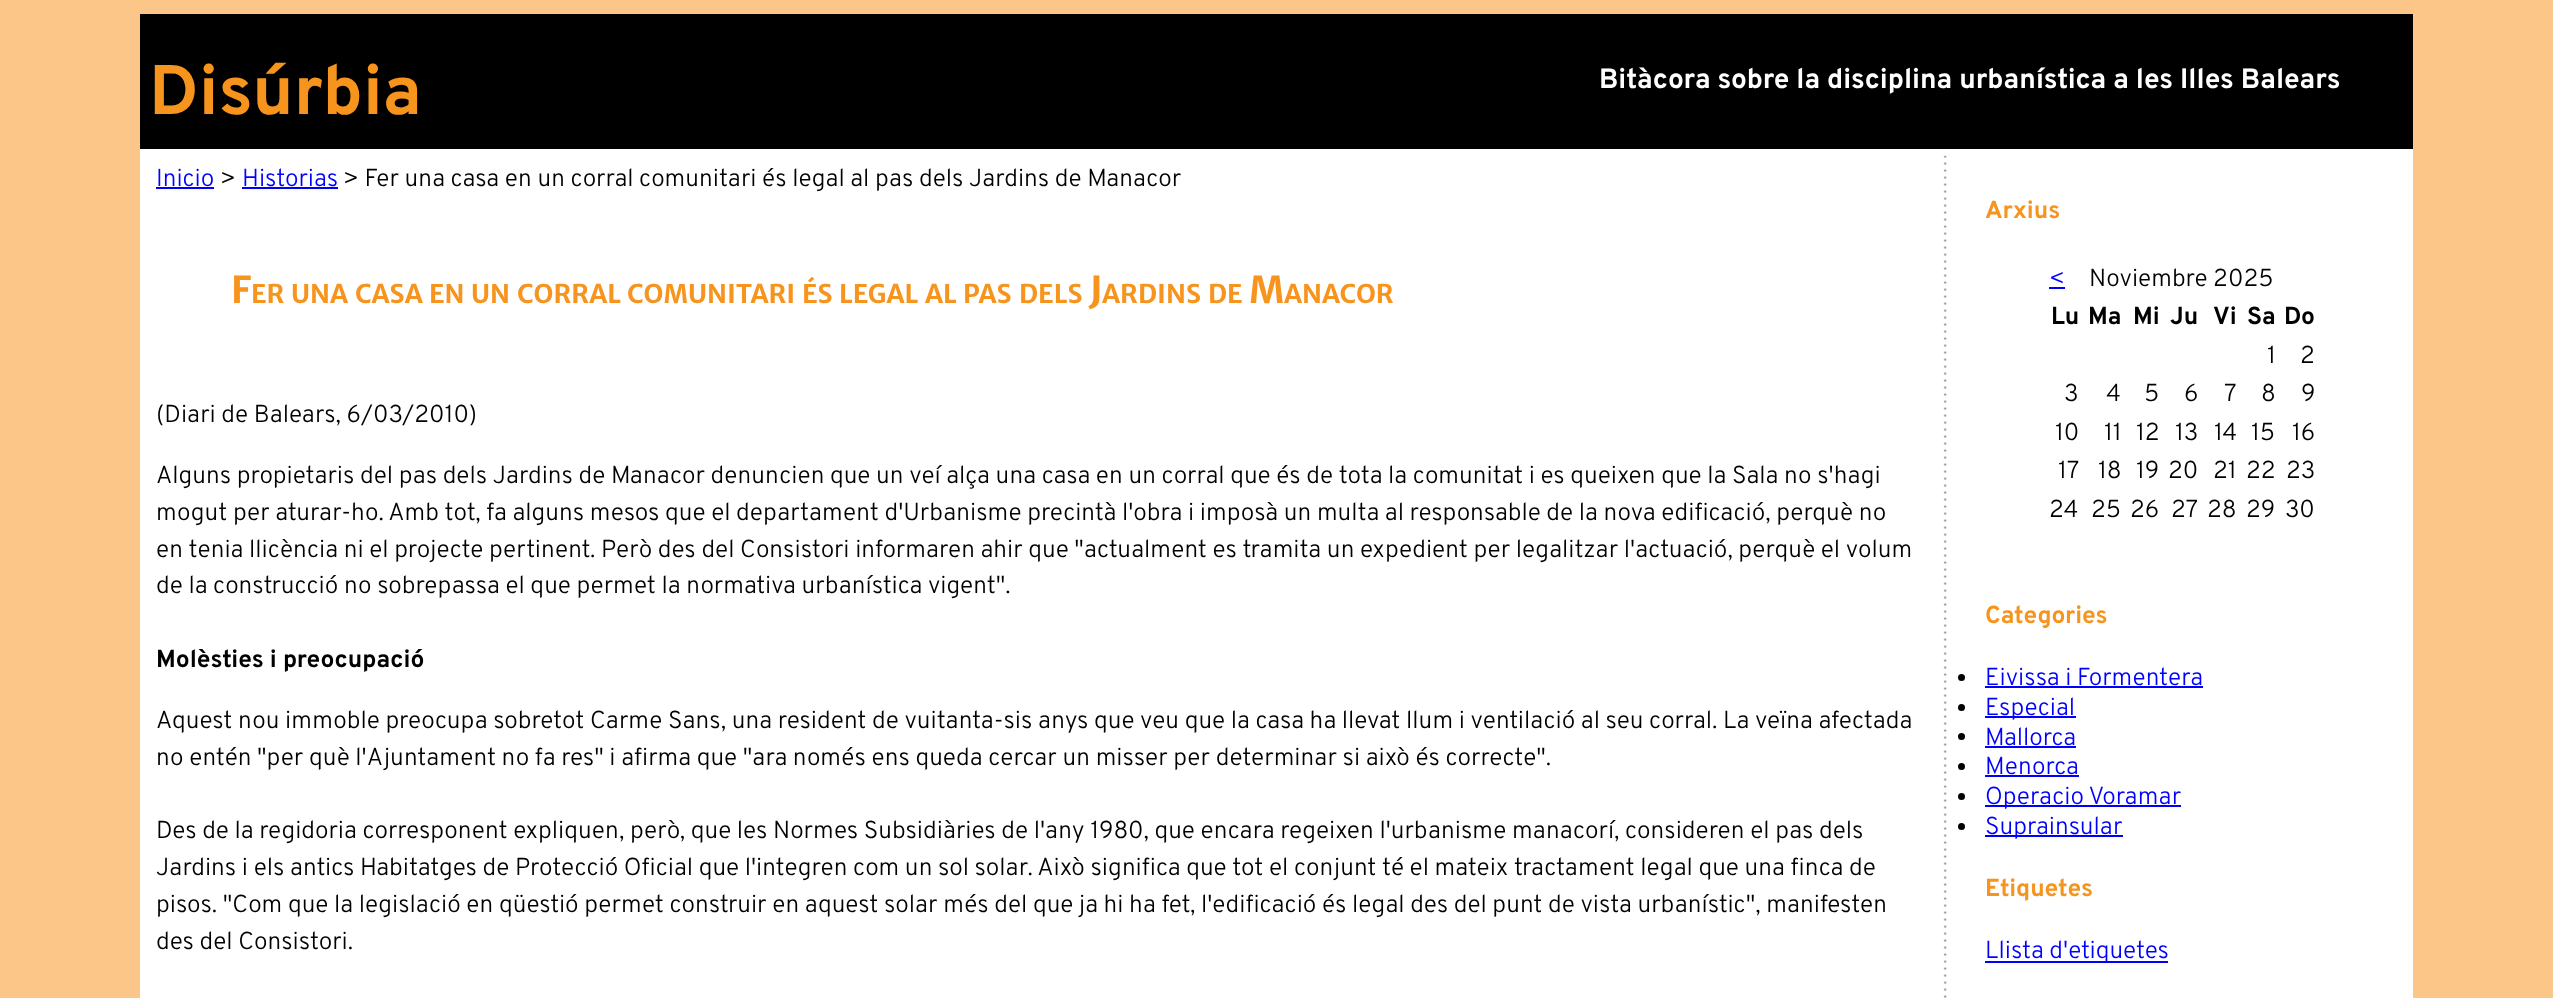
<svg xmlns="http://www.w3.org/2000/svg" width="2553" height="998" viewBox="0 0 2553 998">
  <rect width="100%" height="100%" fill="rgb(253,198,137)"/>
  <rect x="140" y="14" width="2273" height="135" fill="rgb(0,0,0)"/>
  <text x="149" y="114" font-family="Overpass" font-size="70" font-weight="bold" fill="rgb(247,148,29)">Disúrbia</text>
  <text x="1599" y="88" font-family="Overpass" font-size="28" font-weight="bold" fill="rgb(255,255,255)">Bitàcora sobre la disciplina urbanística a les Illes Balears</text>
  <rect x="140" y="149" width="2273" height="849" fill="rgb(255,255,255)"/>
  <text x="156" y="186" font-family="Overpass" font-size="24.5" font-weight="300" fill="rgb(0,0,255)">Inicio</text>
  <rect x="156" y="187" width="58" height="2" fill="rgb(0,0,255)"/>
  <text x="220" y="186" font-family="Overpass" font-size="24.5" font-weight="300" fill="rgb(0,0,0)">&gt;</text>
  <text x="242" y="186" font-family="Overpass" font-size="24.5" font-weight="300" fill="rgb(0,0,255)">Historias</text>
  <rect x="242" y="187" width="96" height="2" fill="rgb(0,0,255)"/>
  <text x="343" y="186" font-family="Overpass" font-size="24.5" font-weight="300" fill="rgb(0,0,0)">&gt; Fer una casa en un corral comunitari és legal al pas dels Jardins de Manacor</text>
  <text x="231" y="303" font-family="Merriweather Sans" font-size="37" font-weight="bold" fill="rgb(247,148,29)">F</text>
  <g font-family="Merriweather Sans" font-size="25.75" font-weight="bold" fill="rgb(247,148,29)">
    <text x="251" y="303">ER</text>
    <text x="291" y="303">UNA</text>
    <text x="355" y="303">CASA</text>
    <text x="429" y="303">EN</text>
    <text x="471" y="303">UN</text>
    <text x="517" y="303">CORRAL</text>
    <text x="627" y="303">COMUNITARI</text>
    <text x="802" y="303">ÉS</text>
    <text x="839" y="303">LEGAL</text>
    <text x="925" y="303">AL</text>
    <text x="963" y="303">PAS</text>
    <text x="1019" y="303">DELS</text>
  </g>
  <text x="1089" y="303" font-family="Merriweather Sans" font-size="37" font-weight="bold" fill="rgb(247,148,29)">J</text>
  <g font-family="Merriweather Sans" font-size="25.75" font-weight="bold" fill="rgb(247,148,29)">
    <text x="1102" y="303">ARDINS</text>
    <text x="1208" y="303">DE</text>
  </g>
  <text x="1249" y="303" font-family="Merriweather Sans" font-size="37" font-weight="bold" fill="rgb(247,148,29)">M</text>
  <text x="1284" y="303" font-family="Merriweather Sans" font-size="25.75" font-weight="bold" fill="rgb(247,148,29)">ANACOR</text>
  <g font-family="Overpass" font-size="24.5" font-weight="300" fill="rgb(0,0,0)">
    <text x="156" y="422">(Diari de Balears, 6/03/2010)</text>
    <text>
      <tspan x="156" y="483">Alguns propietaris del pas dels Jardins de Manacor denuncien que un veí alça una casa en un corral que és de tota la comunitat i es queixen que la Sala no s'hagi</tspan>
      <tspan x="156" y="520">mogut per aturar-ho. Amb tot, fa alguns mesos que el departament d'Urbanisme precintà l'obra i imposà un multa al responsable de la nova edificació, perquè no</tspan>
      <tspan x="156" y="557">en tenia llicència ni el projecte pertinent. Però des del Consistori informaren ahir que "actualment es tramita un expedient per legalitzar l'actuació, perquè el volum</tspan>
      <tspan x="156" y="593">de la construcció no sobrepassa el que permet la normativa urbanística vigent".</tspan>
    </text>
  </g>
  <text x="156" y="667" font-family="Overpass" font-size="24.5" font-weight="bold" fill="rgb(0,0,0)">Molèsties i preocupació</text>
  <g font-family="Overpass" font-size="24.5" font-weight="300" fill="rgb(0,0,0)">
    <text>
      <tspan x="156" y="728">Aquest nou immoble preocupa sobretot Carme Sans, una resident de vuitanta-sis anys que veu que la casa ha llevat llum i ventilació al seu corral. La veïna afectada</tspan>
      <tspan x="156" y="765">no entén "per què l'Ajuntament no fa res" i afirma que "ara només ens queda cercar un misser per determinar si això és correcte".</tspan>
    </text>
    <text>
      <tspan x="156" y="838">Des de la regidoria corresponent expliquen, però, que les Normes Subsidiàries de l'any 1980, que encara regeixen l'urbanisme manacorí, consideren el pas dels</tspan>
      <tspan x="156" y="875">Jardins i els antics Habitatges de Protecció Oficial que l'integren com un sol solar. Això significa que tot el conjunt té el mateix tractament legal que una finca de</tspan>
      <tspan x="156" y="912">pisos. "Com que la legislació en qüestió permet construir en aquest solar més del que ja hi ha fet, l'edificació és legal des del punt de vista urbanístic", manifesten</tspan>
      <tspan x="156" y="949">des del Consistori.</tspan>
    </text>
  </g>
  <image x="1943" y="155" width="4" height="843" href="pic1.png"/>
  <text x="1985" y="218" font-family="Overpass" font-size="24.5" font-weight="bold" fill="rgb(247,148,29)">Arxius</text>
  <text x="2049" y="286" font-family="Overpass" font-size="24.5" font-weight="300" fill="rgb(0,0,255)">&lt;</text>
  <rect x="2049" y="287" width="16" height="2" fill="rgb(0,0,255)"/>
  <text x="2089" y="286" font-family="Overpass" font-size="24.5" font-weight="300" fill="rgb(0,0,0)">Noviembre 2025</text>
  <g font-family="Overpass" font-size="24.5" font-weight="bold" fill="rgb(0,0,0)">
    <text x="2051" y="324">Lu</text>
    <text x="2088" y="324">Ma</text>
    <text x="2133" y="324">Mi</text>
    <text x="2170" y="324">Ju</text>
    <text x="2213" y="324">Vi</text>
    <text x="2247" y="324">Sa</text>
    <text x="2284" y="324">Do</text>
  </g>
  <g font-family="Overpass" font-size="24.5" font-weight="300" fill="rgb(0,0,0)">
    <text x="2267" y="363">1</text>
    <text x="2300" y="363">2</text>
    <text x="2064" y="401">3</text>
    <text x="2106" y="401">4</text>
    <text x="2144" y="401">5</text>
    <text x="2184" y="401">6</text>
    <text x="2224" y="401">7</text>
    <text x="2261" y="401">8</text>
    <text x="2301" y="401">9</text>
    <text x="2055" y="440">10</text>
    <text x="2104" y="440">11</text>
    <text x="2136" y="440">12</text>
    <text x="2175" y="440">13</text>
    <text x="2214" y="440">14</text>
    <text x="2251" y="440">15</text>
    <text x="2292" y="440">16</text>
    <text x="2058" y="478">17</text>
    <text x="2098" y="478">18</text>
    <text x="2136" y="478">19</text>
    <text x="2168" y="478">20</text>
    <text x="2213" y="478">21</text>
    <text x="2246" y="478">22</text>
    <text x="2286" y="478">23</text>
    <text x="2049" y="517">24</text>
    <text x="2091" y="517">25</text>
    <text x="2130" y="517">26</text>
    <text x="2171" y="517">27</text>
    <text x="2207" y="517">28</text>
    <text x="2246" y="517">29</text>
    <text x="2285" y="517">30</text>
  </g>
  <text x="1985" y="623" font-family="Overpass" font-size="24.5" font-weight="bold" fill="rgb(247,148,29)">Categories</text>
  <circle cx="1961.5" cy="677.5" r="3.5" fill="rgb(0,0,0)"/>
  <text x="1985" y="685" font-family="Overpass" font-size="24.5" font-weight="300" fill="rgb(0,0,255)">Eivissa i Formentera</text>
  <rect x="1985" y="686" width="218" height="2" fill="rgb(0,0,255)"/>
  <circle cx="1961.5" cy="707.5" r="3.5" fill="rgb(0,0,0)"/>
  <rect x="1985" y="716" width="91" height="2" fill="rgb(0,0,255)"/>
  <text x="1985" y="715" font-family="Overpass" font-size="24.5" font-weight="300" fill="rgb(0,0,255)">Especial</text>
  <circle cx="1961.5" cy="736.5" r="3.5" fill="rgb(0,0,0)"/>
  <text x="1985" y="745" font-family="Overpass" font-size="24.5" font-weight="300" fill="rgb(0,0,255)">Mallorca</text>
  <rect x="1985" y="746" width="91" height="2" fill="rgb(0,0,255)"/>
  <circle cx="1961.5" cy="766.5" r="3.5" fill="rgb(0,0,0)"/>
  <text x="1985" y="774" font-family="Overpass" font-size="24.5" font-weight="300" fill="rgb(0,0,255)">Menorca</text>
  <rect x="1985" y="775" width="94" height="2" fill="rgb(0,0,255)"/>
  <circle cx="1961.5" cy="796.5" r="3.5" fill="rgb(0,0,0)"/>
  <rect x="1985" y="805" width="196" height="2" fill="rgb(0,0,255)"/>
  <text x="1985" y="804" font-family="Overpass" font-size="24.5" font-weight="300" fill="rgb(0,0,255)">Operacio Voramar</text>
  <circle cx="1961.5" cy="826.5" r="3.5" fill="rgb(0,0,0)"/>
  <rect x="1985" y="835" width="138" height="2" fill="rgb(0,0,255)"/>
  <text x="1985" y="834" font-family="Overpass" font-size="24.5" font-weight="300" fill="rgb(0,0,255)">Suprainsular</text>
  <text x="1985" y="896" font-family="Overpass" font-size="24.5" font-weight="bold" fill="rgb(247,148,29)">Etiquetes</text>
  <rect x="1985" y="961" width="183" height="2" fill="rgb(0,0,255)"/>
  <text x="1985" y="958" font-family="Overpass" font-size="24.5" font-weight="300" fill="rgb(0,0,255)">Llista d'etiquetes</text>
</svg>
